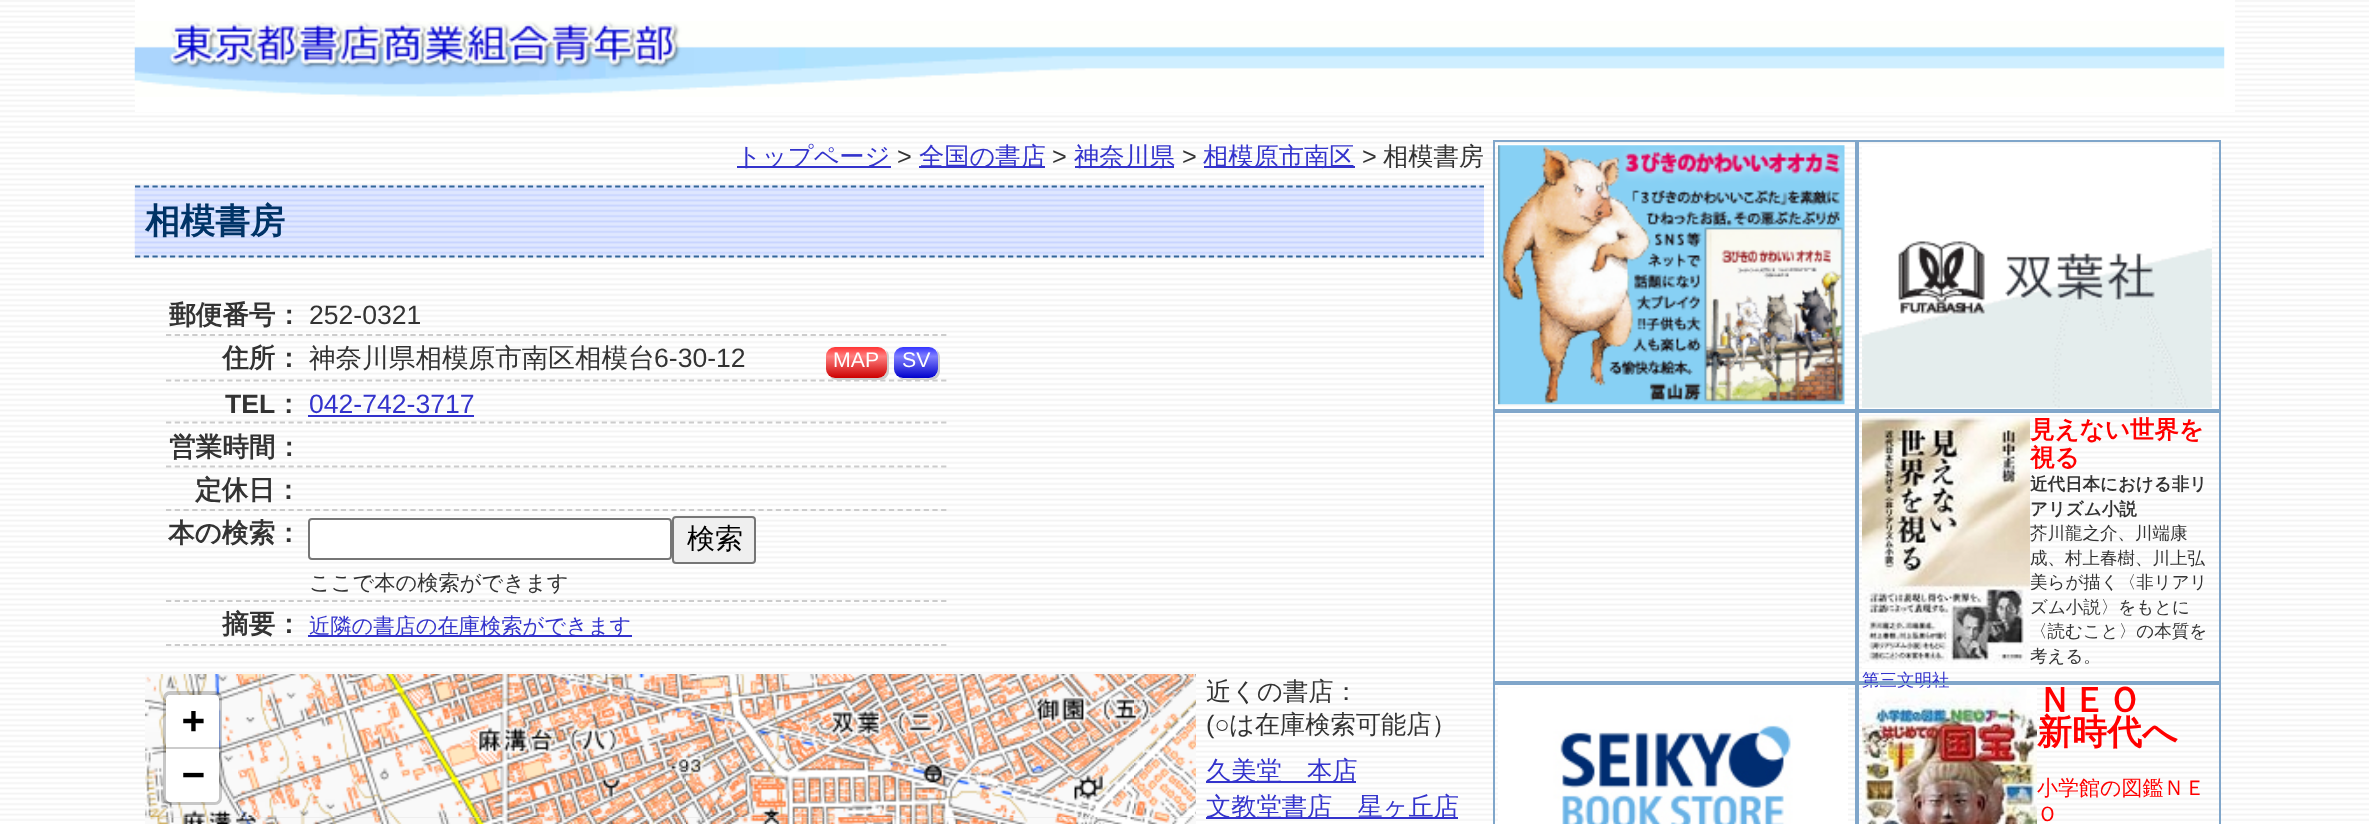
<svg xmlns="http://www.w3.org/2000/svg" width="2369" height="824" viewBox="0 0 2369 824">
  <defs>
    <linearGradient id="g1" gradientUnits="userSpaceOnUse" x1="857" y1="347" x2="857" y2="378"><stop offset="0" stop-color="rgb(255,51,51)"/><stop offset="0.3" stop-color="rgb(255,128,128)"/><stop offset="1" stop-color="rgb(204,0,0)"/></linearGradient>
    <linearGradient id="g2" gradientUnits="userSpaceOnUse" x1="916" y1="347" x2="916" y2="378"><stop offset="0" stop-color="rgb(51,51,255)"/><stop offset="0.3" stop-color="rgb(128,128,255)"/><stop offset="1" stop-color="rgb(0,0,204)"/></linearGradient>
  </defs>
  <rect width="100%" height="100%" fill="rgb(255,255,255)"/>
  <image x="0" y="0" width="2369" height="821" href="pic1.png"/>
  <rect x="135" y="0" width="2100" height="112" fill="rgb(255,255,255)"/>
  <image x="134" y="21" width="2091" height="76" href="pic2.png"/>
  <rect x="737" y="166" width="154" height="2" fill="rgb(51,51,204)"/>
  <text x="736" y="165" font-family="WenQuanYi Zen Hei" font-size="25.25" font-weight="500" fill="rgb(51,51,204)">トップページ</text>
  <text x="897" y="165" font-family="Liberation Sans" font-size="25.25" fill="rgb(51,51,51)">&gt;</text>
  <rect x="919" y="166" width="126" height="2" fill="rgb(51,51,204)"/>
  <text x="919" y="165" font-family="WenQuanYi Zen Hei" font-size="25.25" font-weight="500" fill="rgb(51,51,204)">全国の書店</text>
  <text x="1052" y="165" font-family="Liberation Sans" font-size="25.25" fill="rgb(51,51,51)">&gt;</text>
  <rect x="1075" y="166" width="99" height="2" fill="rgb(51,51,204)"/>
  <text x="1074" y="165" font-family="WenQuanYi Zen Hei" font-size="25.25" font-weight="500" fill="rgb(51,51,204)">神奈川県</text>
  <text x="1182" y="165" font-family="Liberation Sans" font-size="25.25" fill="rgb(51,51,51)">&gt;</text>
  <rect x="1204" y="166" width="151" height="2" fill="rgb(51,51,204)"/>
  <text x="1203" y="165" font-family="WenQuanYi Zen Hei" font-size="25.25" font-weight="500" fill="rgb(51,51,204)">相模原市南区</text>
  <text x="1362" y="165" font-family="Liberation Sans" font-size="25.25" fill="rgb(51,51,51)">&gt;</text>
  <text x="1383" y="165" font-family="WenQuanYi Zen Hei" font-size="25.25" font-weight="500" fill="rgb(51,51,51)">相模書房</text>
  <image x="134" y="185" width="1350" height="73" href="pic3.png"/>
  <path d="M135 186.5H1484" fill="none" stroke="rgb(51,102,153)" stroke-width="1.8" stroke-dasharray="5.25 3.48"/>
  <path d="M135 256.5H1484" fill="none" stroke="rgb(51,102,153)" stroke-width="1.8" stroke-dasharray="5.25 3.48"/>
  <text x="145" y="233" font-family="WenQuanYi Zen Hei" font-size="35" font-weight="bold" fill="rgb(0,51,102)">相模書房</text>
  <path d="M166 335H303" fill="none" stroke="rgb(204,204,204)" stroke-width="1.8" stroke-dasharray="5.25 3.5"/>
  <text x="169" y="324" font-family="WenQuanYi Zen Hei" font-size="26.6" font-weight="bold" fill="rgb(51,51,51)">郵便番号：</text>
  <path d="M306 335H947" fill="none" stroke="rgb(204,204,204)" stroke-width="1.8" stroke-dasharray="5.25 3.45"/>
  <text x="309" y="324" font-family="Liberation Sans" font-size="26.6" fill="rgb(51,51,51)">252-0321</text>
  <path d="M166 380.5H303" fill="none" stroke="rgb(204,204,204)" stroke-width="1.8" stroke-dasharray="5.25 3.5"/>
  <text x="222" y="367" font-family="WenQuanYi Zen Hei" font-size="26.6" font-weight="bold" fill="rgb(51,51,51)">住所：</text>
  <path d="M306 380.5H947" fill="none" stroke="rgb(204,204,204)" stroke-width="1.8" stroke-dasharray="5.25 3.45"/>
  <text x="309" y="367" font-family="WenQuanYi Zen Hei" font-size="26.6" font-weight="500" fill="rgb(51,51,51)">神奈川県相模原市南区相模台</text>
  <text x="654" y="367" font-family="Liberation Sans" font-size="26.6" fill="rgb(51,51,51)">6-30-12</text>
  <path d="M830 377C832 379 834 380 837 380H880C885 380 889 376 889 371V357C889 354 888 351 885 350C887 351 887 353 887 355V369C887 374 883 378 878 378H835C833 378 831 377 830 377Z" fill="rgb(204,204,204)"/>
  <rect x="826" y="347" width="61" height="31" rx="9" fill="url(#g1)"/>
  <text x="833" y="367" font-family="Liberation Sans" font-size="21.25" fill="rgb(255,255,255)">MAP</text>
  <path d="M898 376C899 378 902 380 905 380H931C936 380 940 376 940 371V357C940 354 938 351 936 349C939 353 938 358 938 362V371C936 381 923 378 916 378C911 378 902 380 898 376Z" fill="rgb(204,204,204)"/>
  <rect x="894" y="347" width="44" height="31" rx="9" fill="url(#g2)"/>
  <text x="902" y="367" font-family="Liberation Sans" font-size="21.25" fill="rgb(255,255,255)">SV</text>
  <path d="M166 422.5H303" fill="none" stroke="rgb(204,204,204)" stroke-width="1.8" stroke-dasharray="5.25 3.5"/>
  <text x="225" y="413" font-family="Liberation Sans" font-size="26.6" font-weight="bold" fill="rgb(51,51,51)">TEL</text>
  <text x="275" y="413" font-family="WenQuanYi Zen Hei" font-size="26.6" font-weight="bold" fill="rgb(51,51,51)">：</text>
  <path d="M306 422.5H947" fill="none" stroke="rgb(204,204,204)" stroke-width="1.8" stroke-dasharray="5.25 3.45"/>
  <text x="309" y="413" font-family="Liberation Sans" font-size="26.6" fill="rgb(51,51,204)">042-742-3717</text>
  <rect x="308" y="415" width="166" height="2" fill="rgb(51,51,204)"/>
  <path d="M166 466.5H303" fill="none" stroke="rgb(204,204,204)" stroke-width="1.8" stroke-dasharray="5.25 3.5"/>
  <text x="169" y="456" font-family="WenQuanYi Zen Hei" font-size="26.6" font-weight="bold" fill="rgb(51,51,51)">営業時間：</text>
  <path d="M306 466.5H947" fill="none" stroke="rgb(204,204,204)" stroke-width="1.8" stroke-dasharray="5.25 3.45"/>
  <path d="M166 510H303" fill="none" stroke="rgb(204,204,204)" stroke-width="1.8" stroke-dasharray="5.25 3.5"/>
  <text x="195" y="499" font-family="WenQuanYi Zen Hei" font-size="26.6" font-weight="bold" fill="rgb(51,51,51)">定休日：</text>
  <path d="M306 510H947" fill="none" stroke="rgb(204,204,204)" stroke-width="1.8" stroke-dasharray="5.25 3.45"/>
  <path d="M166 601H303" fill="none" stroke="rgb(204,204,204)" stroke-width="1.8" stroke-dasharray="5.25 3.5"/>
  <text x="168" y="542" font-family="WenQuanYi Zen Hei" font-size="26.6" font-weight="bold" fill="rgb(51,51,51)">本の検索：</text>
  <path d="M306 601H947" fill="none" stroke="rgb(204,204,204)" stroke-width="1.8" stroke-dasharray="5.25 3.45"/>
  <rect x="309" y="519" width="362" height="40" rx="3" fill="rgb(255,255,255)" stroke="rgb(118,118,118)" stroke-width="2"/>
  <rect x="673" y="517" width="82" height="46" rx="3" fill="rgb(239,239,239)" stroke="rgb(118,118,118)" stroke-width="2"/>
  <text x="687" y="548" font-family="WenQuanYi Zen Hei" font-size="28" font-weight="500" fill="rgb(0,0,0)">検索</text>
  <text x="309" y="590" font-family="WenQuanYi Zen Hei" font-size="21.25" font-weight="500" fill="rgb(51,51,51)">ここで本の検索ができます</text>
  <path d="M166 645H303" fill="none" stroke="rgb(204,204,204)" stroke-width="1.8" stroke-dasharray="5.25 3.5"/>
  <text x="222" y="633" font-family="WenQuanYi Zen Hei" font-size="26.6" font-weight="bold" fill="rgb(51,51,51)">摘要：</text>
  <path d="M306 645H947" fill="none" stroke="rgb(204,204,204)" stroke-width="1.8" stroke-dasharray="5.25 3.45"/>
  <rect x="308" y="635" width="324" height="2" fill="rgb(51,51,204)"/>
  <text x="309" y="633" font-family="WenQuanYi Zen Hei" font-size="21.25" font-weight="500" fill="rgb(51,51,204)">近隣の書店の在庫検索ができます</text>
  <rect x="145" y="817" width="1050" height="1" fill="rgb(221,221,221)"/>
  <image x="145" y="674" width="93" height="143" href="pic4.png"/>
  <image x="238" y="674" width="448" height="143" href="pic5.png"/>
  <image x="686" y="674" width="448" height="143" href="pic6.png"/>
  <image x="1134" y="674" width="62" height="143" href="pic7.png"/>
  <image x="145" y="817" width="93" height="7" href="pic8.png"/>
  <image x="238" y="817" width="448" height="7" href="pic9.png"/>
  <image x="686" y="817" width="448" height="7" href="pic10.png"/>
  <image x="1134" y="817" width="62" height="7" href="pic11.png"/>
  <rect x="165" y="693" width="55" height="110" rx="5" fill="none" stroke="rgba(0,0,0,0.2)" stroke-width="4"/>
  <path d="M170 695H215C217 695 219 697 219 699V749H166V699C166 697 168 695 170 695Z" fill="rgb(255,255,255)"/>
  <rect x="166" y="747" width="53" height="2" fill="rgb(204,204,204)"/>
  <text x="182" y="733" font-family="DejaVu Sans Mono" font-size="38" font-weight="bold" fill="rgb(0,0,0)">+</text>
  <path d="M166 749H219V798C219 800 217 802 215 802H170C168 802 166 800 166 798Z" fill="rgb(255,255,255)"/>
  <text x="182" y="787" font-family="DejaVu Sans Mono" font-size="38" font-weight="bold" fill="rgb(0,0,0)">−</text>
  <text x="1206" y="700" font-family="WenQuanYi Zen Hei" font-size="25.25" font-weight="500" fill="rgb(51,51,51)">近くの書店：</text>
  <text x="1206" y="733" font-family="Liberation Sans" font-size="25.25" fill="rgb(51,51,51)">(○</text>
  <text x="1229" y="733" font-family="WenQuanYi Zen Hei" font-size="25.25" font-weight="500" fill="rgb(51,51,51)">は在庫検索可能店）</text>
  <rect x="1206" y="781" width="150" height="2" fill="rgb(51,51,204)"/>
  <text x="1206" y="779" font-family="WenQuanYi Zen Hei" font-size="25.25" font-weight="500" fill="rgb(51,51,204)">久美堂　本店</text>
  <rect x="1206" y="817" width="252" height="2" fill="rgb(51,51,204)"/>
  <text x="1206" y="815" font-family="WenQuanYi Zen Hei" font-size="25.25" font-weight="500" fill="rgb(51,51,204)">文教堂書店　星ヶ丘店</text>
  <rect x="1494" y="141" width="362" height="269" fill="none" stroke="rgb(128,166,202)" stroke-width="2"/>
  <image x="1498" y="145" width="347" height="260" href="pic12.png"/>
  <rect x="1858" y="141" width="362" height="269" fill="none" stroke="rgb(128,166,202)" stroke-width="2"/>
  <image x="1862" y="147" width="350" height="261" href="pic13.png"/>
  <rect x="1494" y="412" width="362" height="270" fill="none" stroke="rgb(128,166,202)" stroke-width="2"/>
  <rect x="1858" y="412" width="362" height="270" fill="none" stroke="rgb(128,166,202)" stroke-width="2"/>
  <image x="1862" y="416" width="168" height="252" href="pic14.png"/>
  <g font-family="WenQuanYi Zen Hei" font-size="24.5" font-weight="bold" fill="rgb(255,0,0)">
    <text>
      <tspan x="2030" y="438">見えない世界を</tspan>
      <tspan x="2030" y="466">視る</tspan>
    </text>
  </g>
  <g font-family="WenQuanYi Zen Hei" font-size="17.5" font-weight="bold" fill="rgb(51,51,51)">
    <text>
      <tspan x="2030" y="490">近代日本における非リ</tspan>
      <tspan x="2030" y="515">アリズム小説</tspan>
    </text>
  </g>
  <g font-family="WenQuanYi Zen Hei" font-size="17.5" font-weight="500" fill="rgb(51,51,51)">
    <text>
      <tspan x="2030" y="539">芥川龍之介、川端康</tspan>
      <tspan x="2030" y="564">成、村上春樹、川上弘</tspan>
      <tspan x="2030" y="588">美らが描く〈非リアリ</tspan>
      <tspan x="2030" y="613">ズム小説〉をもとに</tspan>
      <tspan x="2030" y="637">〈読むこと〉の本質を</tspan>
      <tspan x="2030" y="662">考える。</tspan>
    </text>
  </g>
  <text x="1862" y="686" font-family="WenQuanYi Zen Hei" font-size="17.5" font-weight="500" fill="rgb(51,51,204)">第三文明社</text>
  <rect x="1494" y="684" width="362" height="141" fill="none" stroke="rgb(128,166,202)" stroke-width="2"/>
  <image x="1498" y="688" width="350" height="136" href="pic15.png"/>
  <rect x="1858" y="684" width="362" height="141" fill="none" stroke="rgb(128,166,202)" stroke-width="2"/>
  <image x="1862" y="687" width="175" height="137" href="pic16.png"/>
  <g font-family="WenQuanYi Zen Hei" font-size="35" font-weight="bold" fill="rgb(255,0,0)">
    <text>
      <tspan x="2037" y="712">ＮＥＯ</tspan>
      <tspan x="2037" y="744">新時代へ</tspan>
    </text>
  </g>
  <g font-family="WenQuanYi Zen Hei" font-size="21" font-weight="500" fill="rgb(255,0,0)">
    <text>
      <tspan x="2037" y="795">小学館の図鑑ＮＥ</tspan>
      <tspan x="2037" y="821">Ｏ</tspan>
    </text>
  </g>
</svg>
